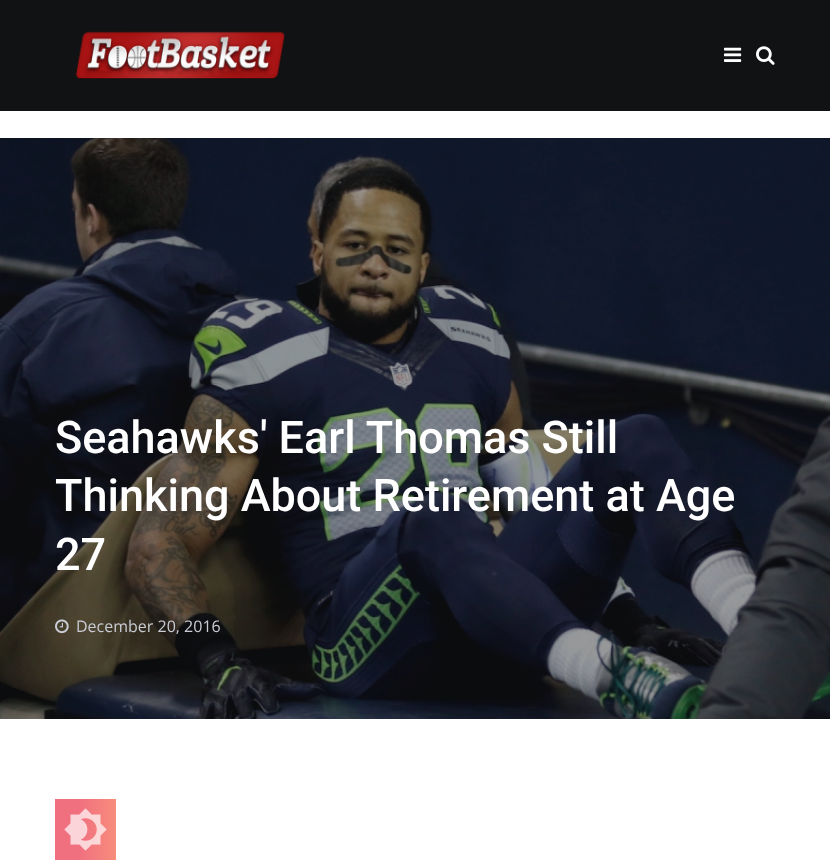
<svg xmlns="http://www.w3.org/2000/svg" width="830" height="860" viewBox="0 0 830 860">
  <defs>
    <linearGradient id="g1" gradientUnits="userSpaceOnUse" x1="55" y1="830" x2="116" y2="830"><stop offset="0.4" stop-color="rgb(241,112,128)"/><stop offset="1" stop-color="rgb(247,141,123)"/></linearGradient>
  </defs>
  <rect width="100%" height="100%" fill="rgb(255,255,255)"/>
  <rect x="0" y="0" width="830" height="111" fill="rgb(17,18,19)"/>
  <image x="75" y="31" width="210" height="48" href="pic1.png"/>
  <image x="724" y="47" width="18" height="15" href="pic2.png"/>
  <image x="756" y="46" width="19" height="19" href="pic3.png"/>
  <rect x="0" y="138" width="830" height="581" fill="rgb(26,27,29)"/>
  <image x="0" y="138" width="830" height="581" href="pic4.png"/>
  <g font-family="Roboto" font-size="45" font-weight="500" fill="rgb(255,255,255)">
    <text>
      <tspan x="55" y="453">Seahawks' Earl Thomas Still</tspan>
      <tspan x="55" y="511">Thinking About Retirement at Age</tspan>
      <tspan x="55" y="570">27</tspan>
    </text>
  </g>
  <image x="55" y="619" width="14" height="15" href="pic5.png"/>
  <text x="76" y="632" font-family="Open Sans" font-size="16" fill="rgb(201,204,212)">December 20, 2016</text>
  <rect x="55" y="799" width="61" height="61" fill="url(#g1)"/>
  <image x="64" y="808" width="43" height="43" href="pic6.png"/>
</svg>
